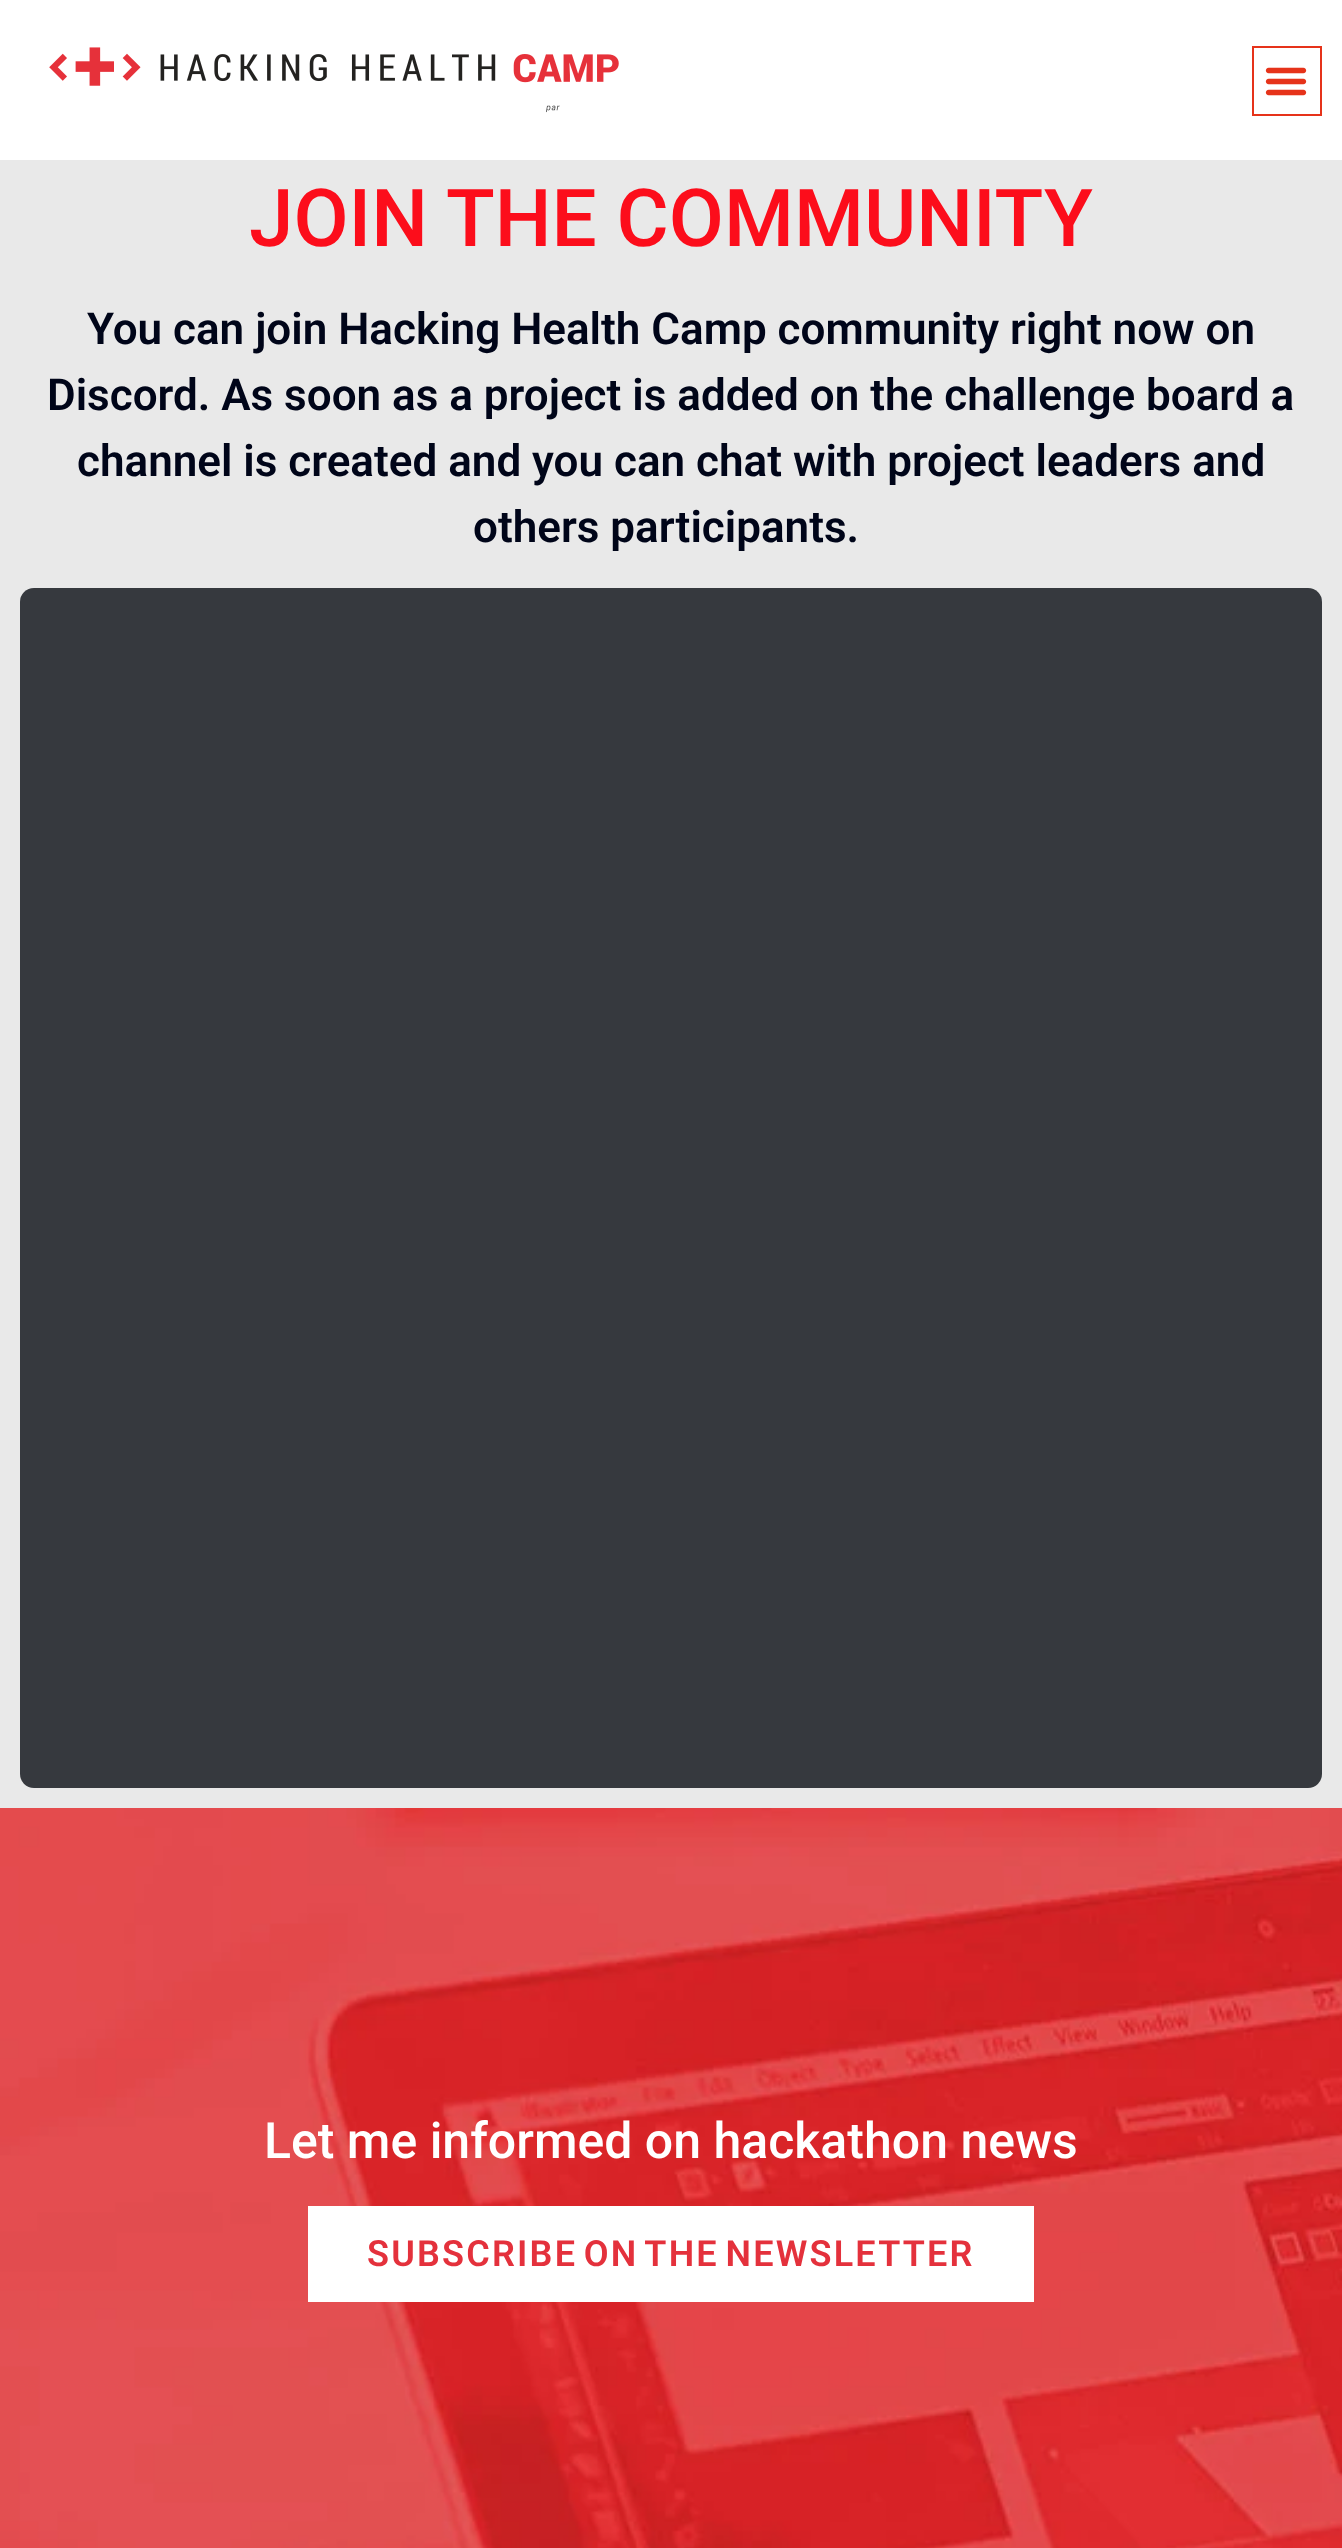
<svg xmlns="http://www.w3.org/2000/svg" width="1342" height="2548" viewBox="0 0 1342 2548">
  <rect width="100%" height="100%" fill="rgb(233,233,233)"/>
  <rect x="0" y="0" width="1342" height="160" fill="rgb(255,255,255)"/>
  <image x="49" y="47" width="570" height="66" href="pic1.png"/>
  <rect x="1253" y="47" width="68" height="68" fill="none" stroke="rgb(230,51,26)" stroke-width="2"/>
  <image x="1265" y="67" width="42" height="29" href="pic2.png"/>
  <text x="249" y="246" font-family="Roboto" font-size="80" font-weight="500" fill="rgb(252,13,27)">JOIN THE COMMUNITY</text>
  <g font-family="Roboto" font-size="44" font-weight="600" fill="rgb(0,5,25)">
    <text x="87" y="344">You can join Hacking Health Camp community right now on</text>
    <text x="47" y="410">Discord. As soon as a project is added on the challenge board a</text>
    <text x="77" y="476">channel is created and you can chat with project leaders and</text>
    <text x="473" y="542">others participants.</text>
  </g>
  <rect x="20" y="588" width="1302" height="1200" rx="14" fill="rgb(54,57,62)"/>
  <image x="0" y="1808" width="1342" height="740" href="pic3.png"/>
  <text x="264" y="2158" font-family="Roboto" font-size="50" font-weight="500" fill="rgb(255,255,255)">Let me informed on hackathon news</text>
  <rect x="308" y="2206" width="726" height="96" fill="rgb(255,255,255)"/>
  <text x="367" y="2266" font-family="Roboto" font-size="36" font-weight="600" letter-spacing="2.2" fill="rgb(228,49,60)">SUBSCRIBE ON THE NEWSLETTER</text>
</svg>
